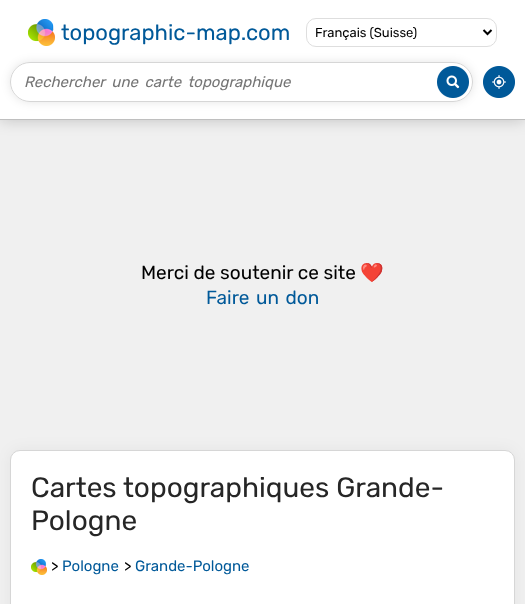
<svg xmlns="http://www.w3.org/2000/svg" width="525" height="604" viewBox="0 0 525 604">
  <defs>
    <clipPath id="clip1"><path d="M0 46H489V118H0ZM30 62H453C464 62 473 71 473 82C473 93 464 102 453 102H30C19 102 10 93 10 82C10 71 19 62 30 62Z" clip-rule="evenodd"/></clipPath>
  </defs>
  <rect width="100%" height="100%" fill="rgb(240,240,240)"/>
  <rect x="0" y="0" width="525" height="120" fill="rgba(0,0,0,0.2)" filter="blur(7.5px)"/>
  <rect x="0" y="0" width="525" height="119" fill="rgb(255,255,255)"/>
  <rect x="0" y="119" width="525" height="1" fill="rgb(191,191,191)"/>
  <image x="28" y="19" width="27" height="27" href="pic1.png"/>
  <text x="61" y="40" font-family="Rubik" font-size="22" fill="rgb(0,89,153)">topographic-map.com</text>
  <rect x="306.5" y="18.5" width="190" height="28" rx="9.5" fill="none" stroke="rgb(222,222,222)"/>
  <path d="M483.5 30L487.5 34L491.5 30" fill="none" stroke="rgb(0,0,0)" stroke-width="2"/>
  <text x="315" y="37" font-family="Rubik" font-size="13" fill="rgb(0,0,0)">Français (Suisse)</text>
  <g clip-path="url(#clip1)">
    <rect x="10" y="62" width="463" height="40" rx="20" fill="rgba(0,0,0,0.1)" filter="blur(5px)"/>
  </g>
  <rect x="10.5" y="62.5" width="462" height="39" rx="19.5" fill="none" stroke="rgb(214,214,214)"/>
  <text x="24" y="87" word-spacing="3" font-family="Rubik" font-size="15" font-style="italic" fill="rgb(117,117,117)">Rechercher une carte topographique</text>
  <image x="437" y="66" width="32" height="32" href="pic2.png"/>
  <image x="483" y="66" width="32" height="32" href="pic3.png"/>
  <text x="141" y="279" font-family="Rubik" font-size="19" fill="rgb(0,0,0)">Merci de soutenir ce site</text>
  <text x="360" y="279" font-family="Noto Color Emoji" font-size="19" fill="rgb(0,0,0)">❤️</text>
  <text x="206" y="304" word-spacing="2" font-family="Rubik" font-size="19" fill="rgb(0,89,153)">Faire un don</text>
  <rect x="10" y="450" width="505" height="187" rx="10" fill="rgba(0,0,0,0.05)" filter="blur(7.5px)"/>
  <rect x="10.5" y="450.5" width="504" height="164" rx="9.5" fill="rgb(255,255,255)" stroke="rgb(214,214,214)"/>
  <g font-family="Rubik" font-size="28" fill="rgb(38,38,38)">
    <text>
      <tspan x="31" y="497">Cartes topographiques Grande-</tspan>
      <tspan x="31" y="530">Pologne</tspan>
    </text>
  </g>
  <image x="31" y="559" width="16" height="16" href="pic4.png"/>
  <text x="51" y="571" font-family="Rubik" font-size="15" fill="rgb(0,0,0)">&gt;</text>
  <text x="62" y="571" font-family="Rubik" font-size="15" fill="rgb(0,89,153)">Pologne</text>
  <text x="124" y="571" font-family="Rubik" font-size="15" fill="rgb(0,0,0)">&gt;</text>
  <text x="135" y="571" font-family="Rubik" font-size="15" fill="rgb(0,89,153)">Grande-Pologne</text>
</svg>
